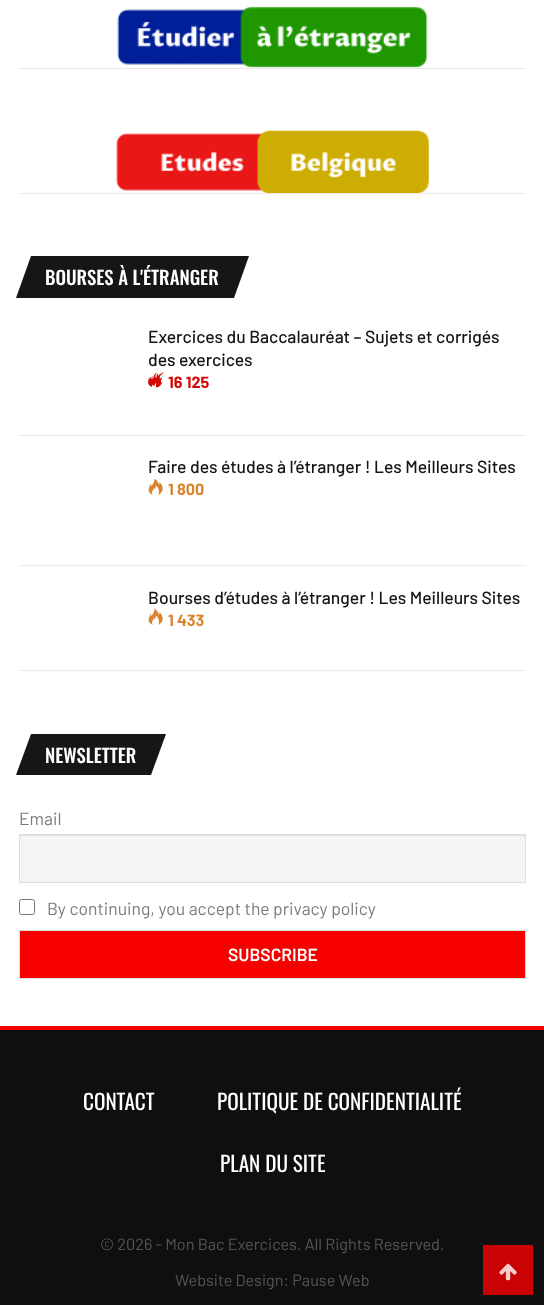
<svg xmlns="http://www.w3.org/2000/svg" width="544" height="1305" viewBox="0 0 544 1305">
  <rect width="100%" height="100%" fill="rgb(247,0,0)"/>
  <rect x="0" y="-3" width="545" height="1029" fill="rgba(0,0,0,0.27)" filter="blur(1px)"/>
  <rect x="0" y="0" width="544" height="1026" fill="rgb(255,255,255)"/>
  <image x="117" y="6" width="311" height="62" href="pic1.png"/>
  <rect x="19" y="68" width="507" height="1" fill="rgb(234,234,234)"/>
  <image x="116" y="130" width="313" height="63" href="pic2.png"/>
  <rect x="19" y="193" width="507" height="1" fill="rgb(234,234,234)"/>
  <rect x="35" y="256" width="214" height="42" fill="rgb(22,22,22)"/>
  <text x="45" y="285" font-family="Oswald" font-size="18.75" font-weight="500" fill="rgb(255,255,255)">BOURSES À L'ÉTRANGER</text>
  <path d="M31 256H50L35 298H16Z" fill="rgb(22,22,22)"/>
  <path d="M249 256H269L254 298H234Z" fill="rgb(255,255,255)"/>
  <rect x="19" y="435" width="507" height="1" fill="rgb(235,235,235)"/>
  <g font-family="Barlow" font-size="17.5" font-weight="500" fill="rgb(22,22,22)">
    <text>
      <tspan x="148" y="343">Exercices du Baccalauréat – Sujets et corrigés</tspan>
      <tspan x="148" y="366">des exercices</tspan>
    </text>
  </g>
  <image x="147" y="371" width="17" height="17" href="pic3.png"/>
  <text x="168" y="388" font-family="Barlow" font-size="16.25" font-weight="bold" fill="rgb(212,8,8)">16 125</text>
  <rect x="19" y="565" width="507" height="1" fill="rgb(235,235,235)"/>
  <text x="148" y="473" font-family="Barlow" font-size="17.5" font-weight="500" fill="rgb(22,22,22)">Faire des études à l’étranger ! Les Meilleurs Sites</text>
  <image x="148" y="478" width="15" height="17" href="pic4.png"/>
  <text x="168" y="495" font-family="Barlow" font-size="16.25" font-weight="bold" fill="rgb(216,133,49)">1 800</text>
  <text x="148" y="604" font-family="Barlow" font-size="17.5" font-weight="500" fill="rgb(22,22,22)">Bourses d’études à l’étranger ! Les Meilleurs Sites</text>
  <image x="148" y="608" width="15" height="17" href="pic4.png"/>
  <text x="168" y="626" font-family="Barlow" font-size="16.25" font-weight="bold" fill="rgb(216,133,49)">1 433</text>
  <rect x="19" y="670" width="507" height="1" fill="rgb(234,234,234)"/>
  <rect x="35" y="734" width="131" height="41" fill="rgb(22,22,22)"/>
  <text x="45" y="763" font-family="Oswald" font-size="18.75" font-weight="500" fill="rgb(255,255,255)">NEWSLETTER</text>
  <path d="M31 734H50L35 775H16Z" fill="rgb(22,22,22)"/>
  <path d="M166 734H186L171 775H151Z" fill="rgb(255,255,255)"/>
  <text x="19" y="825" font-family="Barlow" font-size="17.5" fill="rgb(123,123,123)">Email</text>
  <rect x="20" y="836" width="505" height="46" fill="rgb(244,244,244)"/>
  <rect x="20" y="835" width="505" height="1" fill="rgb(226,226,226)"/>
  <rect x="19.5" y="834.5" width="506" height="48" fill="none" stroke="rgb(221,221,221)"/>
  <rect x="19.5" y="899.5" width="15" height="15" rx="2" fill="none" stroke="rgb(118,118,118)"/>
  <text x="47" y="915" font-family="Barlow" font-size="17.5" fill="rgb(123,123,123)">By continuing, you accept the privacy policy</text>
  <rect x="19.5" y="930.5" width="506" height="48" fill="rgb(247,0,0)" stroke="rgb(221,221,221)"/>
  <text x="228" y="961" font-family="Barlow" font-size="17.5" font-weight="600" fill="rgb(255,255,255)">SUBSCRIBE</text>
  <rect x="0" y="1030" width="544" height="275" fill="rgb(15,15,15)"/>
  <g font-family="Oswald" font-size="21.25" fill="rgb(255,255,255)">
    <text x="83" y="1110">CONTACT</text>
    <text x="217" y="1110">POLITIQUE DE CONFIDENTIALITÉ</text>
    <text x="220" y="1172">PLAN DU SITE</text>
  </g>
  <g font-family="Barlow" font-size="16.25" fill="rgb(86,86,86)">
    <text x="100" y="1250">© 2026 - Mon Bac Exercices. All Rights Reserved.</text>
    <text x="175" y="1286">Website Design: Pause Web</text>
  </g>
  <rect x="483" y="1245" width="50" height="50" fill="rgb(201,3,3)"/>
  <image x="499" y="1263" width="18" height="18" href="pic5.png"/>
</svg>
